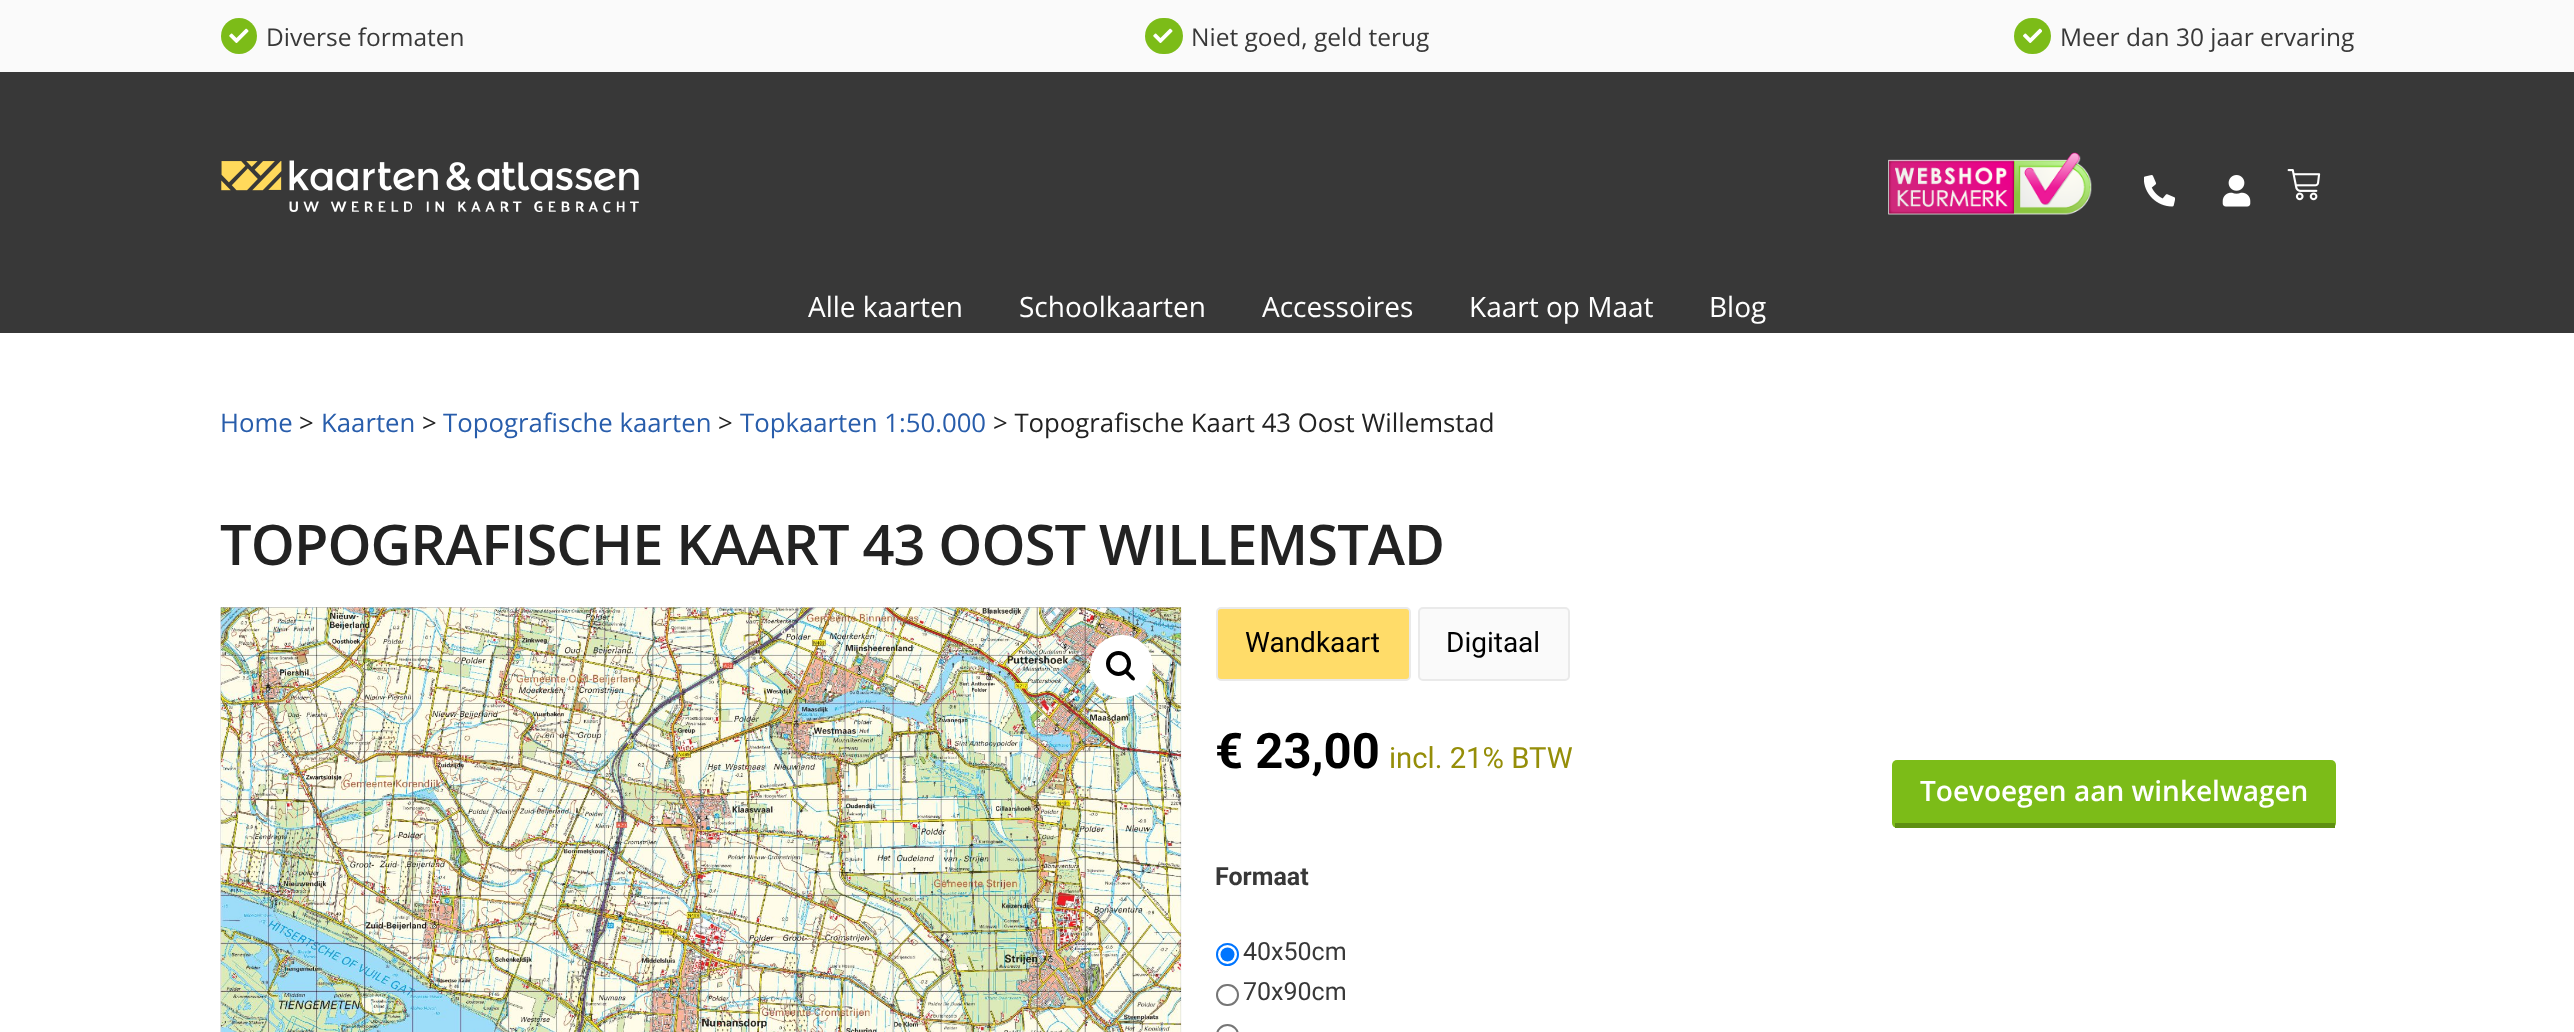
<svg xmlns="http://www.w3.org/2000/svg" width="2574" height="1032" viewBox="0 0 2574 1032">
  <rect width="100%" height="100%" fill="rgb(255,255,255)"/>
  <rect x="0" y="0" width="2574" height="72" fill="rgb(250,250,250)"/>
  <circle cx="239" cy="36" r="18" fill="rgb(124,188,24)"/>
  <image x="229" y="28" width="20" height="15" href="pic1.png"/>
  <text x="266" y="46" font-family="Open Sans" font-size="24.5" fill="rgb(56,56,56)">Diverse formaten</text>
  <rect x="1145" y="18" width="38" height="36" rx="18" fill="rgb(124,188,24)"/>
  <image x="1153" y="28" width="20" height="15" href="pic1.png"/>
  <text x="1191" y="46" font-family="Open Sans" font-size="24.5" fill="rgb(56,56,56)">Niet goed, geld terug</text>
  <rect x="2014" y="18" width="37" height="36" rx="18" fill="rgb(124,188,24)"/>
  <image x="2023" y="28" width="19" height="15" href="pic2.png"/>
  <text x="2060" y="46" font-family="Open Sans" font-size="24.5" fill="rgb(56,56,56)">Meer dan 30 jaar ervaring</text>
  <rect x="0" y="72" width="2574" height="261" fill="rgb(56,56,56)"/>
  <image x="221" y="160" width="418" height="53" href="pic3.png"/>
  <image x="1888" y="152" width="204" height="63" href="pic4.png"/>
  <image x="2144" y="175" width="31" height="32" href="pic5.png"/>
  <image x="2222" y="175" width="29" height="32" href="pic6.png"/>
  <image x="2287" y="169" width="34" height="32" href="pic7.png"/>
  <g font-family="Open Sans" font-size="28" fill="rgb(255,255,255)">
    <text x="808" y="317">Alle kaarten</text>
    <text x="1019" y="317">Schoolkaarten</text>
    <text x="1262" y="317">Accessoires</text>
    <text x="1469" y="317">Kaart op Maat</text>
    <text x="1709" y="317">Blog</text>
  </g>
  <text x="220" y="432" font-family="Open Sans" font-size="25.75" fill="rgb(40,93,171)">Home</text>
  <text x="299" y="432" font-family="Open Sans" font-size="25.75" fill="rgb(34,34,34)">&gt;</text>
  <text x="321" y="432" font-family="Open Sans" font-size="25.75" fill="rgb(40,93,171)">Kaarten</text>
  <text x="422" y="432" font-family="Open Sans" font-size="25.75" fill="rgb(34,34,34)">&gt;</text>
  <text x="443" y="432" font-family="Open Sans" font-size="25.75" fill="rgb(40,93,171)">Topografische kaarten</text>
  <text x="718" y="432" font-family="Open Sans" font-size="25.75" fill="rgb(34,34,34)">&gt;</text>
  <text x="740" y="432" font-family="Open Sans" font-size="25.75" fill="rgb(40,93,171)">Topkaarten 1:50.000</text>
  <text x="993" y="432" font-family="Open Sans" font-size="25.75" fill="rgb(34,34,34)">&gt; Topografische Kaart 43 Oost Willemstad</text>
  <text x="220" y="565" font-family="Open Sans" font-size="56" font-weight="600" letter-spacing="-0.9" fill="rgb(34,34,34)">TOPOGRAFISCHE KAART 43 OOST WILLEMSTAD</text>
  <image x="220" y="607" width="962" height="425" href="pic8.png"/>
  <circle cx="1121.5" cy="666.5" r="31.5" fill="rgb(255,255,255)"/>
  <circle cx="1118.5" cy="663.5" r="10.5" fill="none" stroke="rgb(0,0,0)" stroke-width="4"/>
  <path d="M1124.5 670C1126.5 668 1130 673 1131 674C1132 675 1136.5 678 1134.5 680C1132.5 682 1129.5 677.5 1128.5 676.5C1127.5 675.5 1122.5 672 1124.5 670Z" fill="rgb(0,0,0)"/>
  <rect x="1217" y="608" width="193" height="72" rx="4" fill="rgb(255,220,105)" stroke="rgb(234,234,234)" stroke-width="2"/>
  <text x="1245" y="652" font-family="Roboto" font-size="28" fill="rgb(0,0,0)">Wandkaart</text>
  <rect x="1419" y="608" width="150" height="72" rx="4" fill="rgb(250,250,250)" stroke="rgb(234,234,234)" stroke-width="2"/>
  <text x="1446" y="652" font-family="Roboto" font-size="28" fill="rgb(0,0,0)">Digitaal</text>
  <text x="1215" y="768" font-family="Roboto" font-size="49" font-weight="bold" fill="rgb(0,0,0)">€ 23,00</text>
  <text x="1389" y="768" font-family="Roboto" font-size="29.25" fill="rgb(149,142,9)">incl. 21% BTW</text>
  <rect x="1892" y="760" width="444" height="68" rx="5" fill="rgb(124,188,24)"/>
  <rect x="1895" y="823" width="440" height="5" fill="rgb(94,143,18)"/>
  <text x="1920" y="801" font-family="Open Sans" font-size="28" font-weight="600" fill="rgb(255,255,255)">Toevoegen aan winkelwagen</text>
  <text x="1215" y="885" font-family="Roboto" font-size="25" font-weight="bold" fill="rgb(56,56,56)">Formaat</text>
  <circle cx="1227.5" cy="954.5" r="10.5" fill="none" stroke="rgb(0,117,255)" stroke-width="2"/>
  <circle cx="1227.5" cy="954.5" r="7" fill="rgb(0,117,255)"/>
  <text x="1243" y="960" font-family="Roboto" font-size="25" fill="rgb(56,56,56)">40x50cm</text>
  <rect x="1217" y="985" width="21" height="20" rx="10" fill="none" stroke="rgb(118,118,118)" stroke-width="2"/>
  <text x="1243" y="1000" font-family="Roboto" font-size="25" fill="rgb(56,56,56)">70x90cm</text>
  <rect x="1217" y="1025" width="21" height="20" rx="10.5" fill="none" stroke="rgb(118,118,118)" stroke-width="2"/>
</svg>
